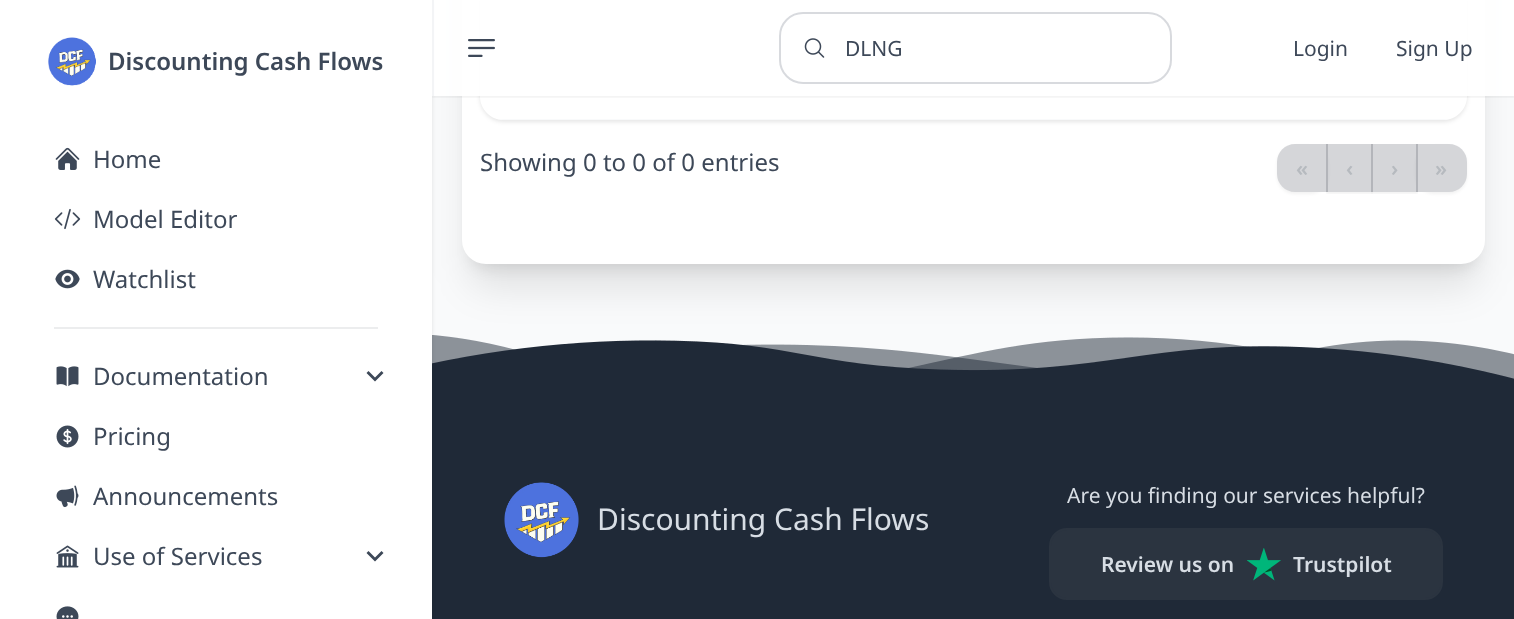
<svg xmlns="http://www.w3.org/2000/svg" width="1514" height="619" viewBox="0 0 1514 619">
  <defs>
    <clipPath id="clip1"><path d="M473 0H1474V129H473ZM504-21H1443C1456.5-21 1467-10.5 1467 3V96C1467 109.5 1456.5 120 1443 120H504C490.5 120 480 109.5 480 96V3C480-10.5 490.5-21 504-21Z" clip-rule="evenodd"/></clipPath>
    <clipPath id="clip2"><rect x="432" y="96" width="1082" height="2"/></clipPath>
    <clipPath id="clip3"><rect x="480" y="-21" width="987" height="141" rx="24"/></clipPath>
    <clipPath id="clip4"><path d="M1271 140H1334V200H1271ZM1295 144H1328V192H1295C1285 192 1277 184 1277 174V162C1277 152 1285 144 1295 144Z" clip-rule="evenodd"/></clipPath>
    <clipPath id="clip5"><rect x="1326" y="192" width="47" height="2"/></clipPath>
    <clipPath id="clip6"><rect x="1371" y="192" width="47" height="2"/></clipPath>
    <clipPath id="clip7"><path d="M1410 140H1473V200H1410ZM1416 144H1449C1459 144 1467 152 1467 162V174C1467 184 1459 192 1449 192H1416Z" clip-rule="evenodd"/></clipPath>
  </defs>
  <rect width="100%" height="100%" fill="rgb(249,250,251)"/>
  <image x="432" y="335" width="1082" height="49" href="pic12.png"/>
  <rect x="432" y="384" width="1082" height="235" fill="rgb(31,41,55)"/>
  <rect x="0" y="2" width="432" height="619" fill="rgba(0,0,0,0.1)" filter="blur(2px)"/>
  <rect x="0" y="0" width="432" height="619" fill="rgb(255,255,255)"/>
  <image x="48" y="37" width="48" height="49" href="pic1.png"/>
  <text x="108" y="70" font-family="Noto Sans" font-size="24" font-weight="600" fill="rgb(61,72,88)">Discounting Cash Flows</text>
  <image x="55" y="147" width="25" height="23" href="pic2.png"/>
  <text x="93" y="168" font-family="Noto Sans" font-size="24" fill="rgb(61,72,88)">Home</text>
  <image x="54" y="208" width="27" height="22" href="pic3.png"/>
  <text x="93" y="228" font-family="Noto Sans" font-size="24" fill="rgb(61,72,88)">Model Editor</text>
  <image x="55" y="269" width="25" height="20" href="pic4.png"/>
  <text x="93" y="288" font-family="Noto Sans" font-size="24" fill="rgb(61,72,88)">Watchlist</text>
  <rect x="54" y="327" width="324" height="2" fill="rgb(236,237,238)"/>
  <image x="56" y="366" width="23" height="21" href="pic5.png"/>
  <text x="93" y="385" font-family="Noto Sans" font-size="24" fill="rgb(61,72,88)">Documentation</text>
  <path d="M368.5 371L366.5 373L375 381.5L383.5 373L381.5 371L375 377.5Z" fill="rgb(61,72,88)"/>
  <image x="56" y="425" width="23" height="23" href="pic6.png"/>
  <text x="93" y="445" font-family="Noto Sans" font-size="24" fill="rgb(61,72,88)">Pricing</text>
  <image x="56" y="485" width="23" height="23" href="pic7.png"/>
  <text x="93" y="505" font-family="Noto Sans" font-size="24" fill="rgb(61,72,88)">Announcements</text>
  <image x="56" y="545" width="23" height="23" href="pic8.png"/>
  <text x="93" y="565" font-family="Noto Sans" font-size="24" fill="rgb(61,72,88)">Use of Services</text>
  <path d="M368.5 551L366.5 553L375 561.5L383.5 553L381.5 551L375 557.5Z" fill="rgb(61,72,88)"/>
  <image x="56" y="606" width="23" height="13" href="pic9.png"/>
  <rect x="471" y="-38" width="1005" height="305" rx="15" fill="rgba(0,0,0,0.1)" filter="blur(7.5px)"/>
  <rect x="470" y="-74" width="1008" height="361" rx="17" fill="rgba(0,0,0,0.1)" filter="blur(19px)"/>
  <rect x="462" y="-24" width="1023" height="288" rx="24" fill="rgb(255,255,255)"/>
  <g clip-path="url(#clip1)">
    <rect x="480" y="-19" width="987" height="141" rx="24" fill="rgba(0,0,0,0.1)" filter="blur(2px)"/>
  </g>
  <path d="M504-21H689V53H480V3C480-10.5 490.5-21 504-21Z" fill="rgb(249,250,251)"/>
  <rect x="689" y="0" width="171" height="53" fill="rgb(249,250,251)"/>
  <rect x="860" y="0" width="279" height="12" fill="rgb(249,250,251)"/>
  <rect x="1139" y="0" width="150" height="53" fill="rgb(249,250,251)"/>
  <path d="M1289-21H1443C1456.5-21 1467-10.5 1467 3V53H1289Z" fill="rgb(249,250,251)"/>
  <g clip-path="url(#clip2)">
    <rect x="432" y="2" width="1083" height="96" fill="rgba(0,0,0,0.05)" filter="blur(1.5px)"/>
  </g>
  <rect x="434" y="0" width="1080" height="96" fill="rgba(255,255,255,0.9)"/>
  <rect x="432" y="0" width="2" height="96" fill="rgb(243,244,246)"/>
  <image x="468" y="39" width="27" height="18" href="pic10.png"/>
  <rect x="780" y="13" width="391" height="70" rx="23" fill="none" stroke="rgba(61,72,88,0.2)" stroke-width="2"/>
  <image x="804" y="38" width="21" height="20" href="pic11.png"/>
  <g font-family="Noto Sans" font-size="21" fill="rgb(61,72,88)">
    <text x="845" y="56">DLNG</text>
    <text x="1293" y="56">Login</text>
    <text x="1396" y="56">Sign Up</text>
  </g>
  <g clip-path="url(#clip3)">
    <rect x="497" y="119" width="953" height="1" fill="rgb(249,250,251)"/>
  </g>
  <text x="480" y="171" font-family="Noto Sans" font-size="24" fill="rgb(61,72,88)">Showing 0 to 0 of 0 entries</text>
  <g clip-path="url(#clip4)">
    <rect x="1277" y="146" width="51" height="48" rx="18" fill="rgba(0,0,0,0.05)" filter="blur(1.5px)"/>
  </g>
  <path d="M1295 144H1328V192H1295C1285 192 1277 184 1277 174V162C1277 152 1285 144 1295 144Z" fill="rgba(43,52,64,0.2)"/>
  <text x="1296" y="176" font-family="Noto Sans" font-size="21" font-weight="600" fill="rgb(182,186,191)">«</text>
  <g clip-path="url(#clip5)">
    <rect x="1326" y="146" width="47" height="48" fill="rgba(0,0,0,0.05)" filter="blur(1.5px)"/>
  </g>
  <rect x="1326" y="144" width="47" height="48" fill="rgba(43,52,64,0.2)"/>
  <text x="1346" y="176" font-family="Noto Sans" font-size="21" font-weight="600" fill="rgb(182,186,191)">‹</text>
  <g clip-path="url(#clip6)">
    <rect x="1371" y="146" width="47" height="48" fill="rgba(0,0,0,0.05)" filter="blur(1.5px)"/>
  </g>
  <rect x="1371" y="144" width="47" height="48" fill="rgba(43,52,64,0.2)"/>
  <text x="1391" y="176" font-family="Noto Sans" font-size="21" font-weight="600" fill="rgb(182,186,191)">›</text>
  <g clip-path="url(#clip7)">
    <rect x="1416" y="146" width="51" height="48" rx="18" fill="rgba(0,0,0,0.05)" filter="blur(1.5px)"/>
  </g>
  <path d="M1416 144H1449C1459 144 1467 152 1467 162V174C1467 184 1459 192 1449 192H1416Z" fill="rgba(43,52,64,0.2)"/>
  <text x="1435" y="176" font-family="Noto Sans" font-size="21" font-weight="600" fill="rgb(182,186,191)">»</text>
  <image x="504" y="482" width="75" height="76" href="pic13.png"/>
  <text x="597" y="530" font-family="Noto Sans" font-size="30" fill="rgb(215,221,228)">Discounting Cash Flows</text>
  <text x="1067" y="503" font-family="Noto Sans" font-size="21" fill="rgb(215,221,228)">Are you finding our services helpful?</text>
  <rect x="1050" y="529" width="392" height="70" rx="17" fill="rgb(43,52,64)" stroke="rgb(43,52,64)" stroke-width="2"/>
  <text x="1101" y="572" font-family="Noto Sans" font-size="21" font-weight="600" fill="rgb(215,221,228)">Review us on</text>
  <image x="1247" y="548" width="34" height="33" href="pic14.png"/>
  <text x="1293" y="572" font-family="Noto Sans" font-size="21" font-weight="600" fill="rgb(215,221,228)">Trustpilot</text>
</svg>
